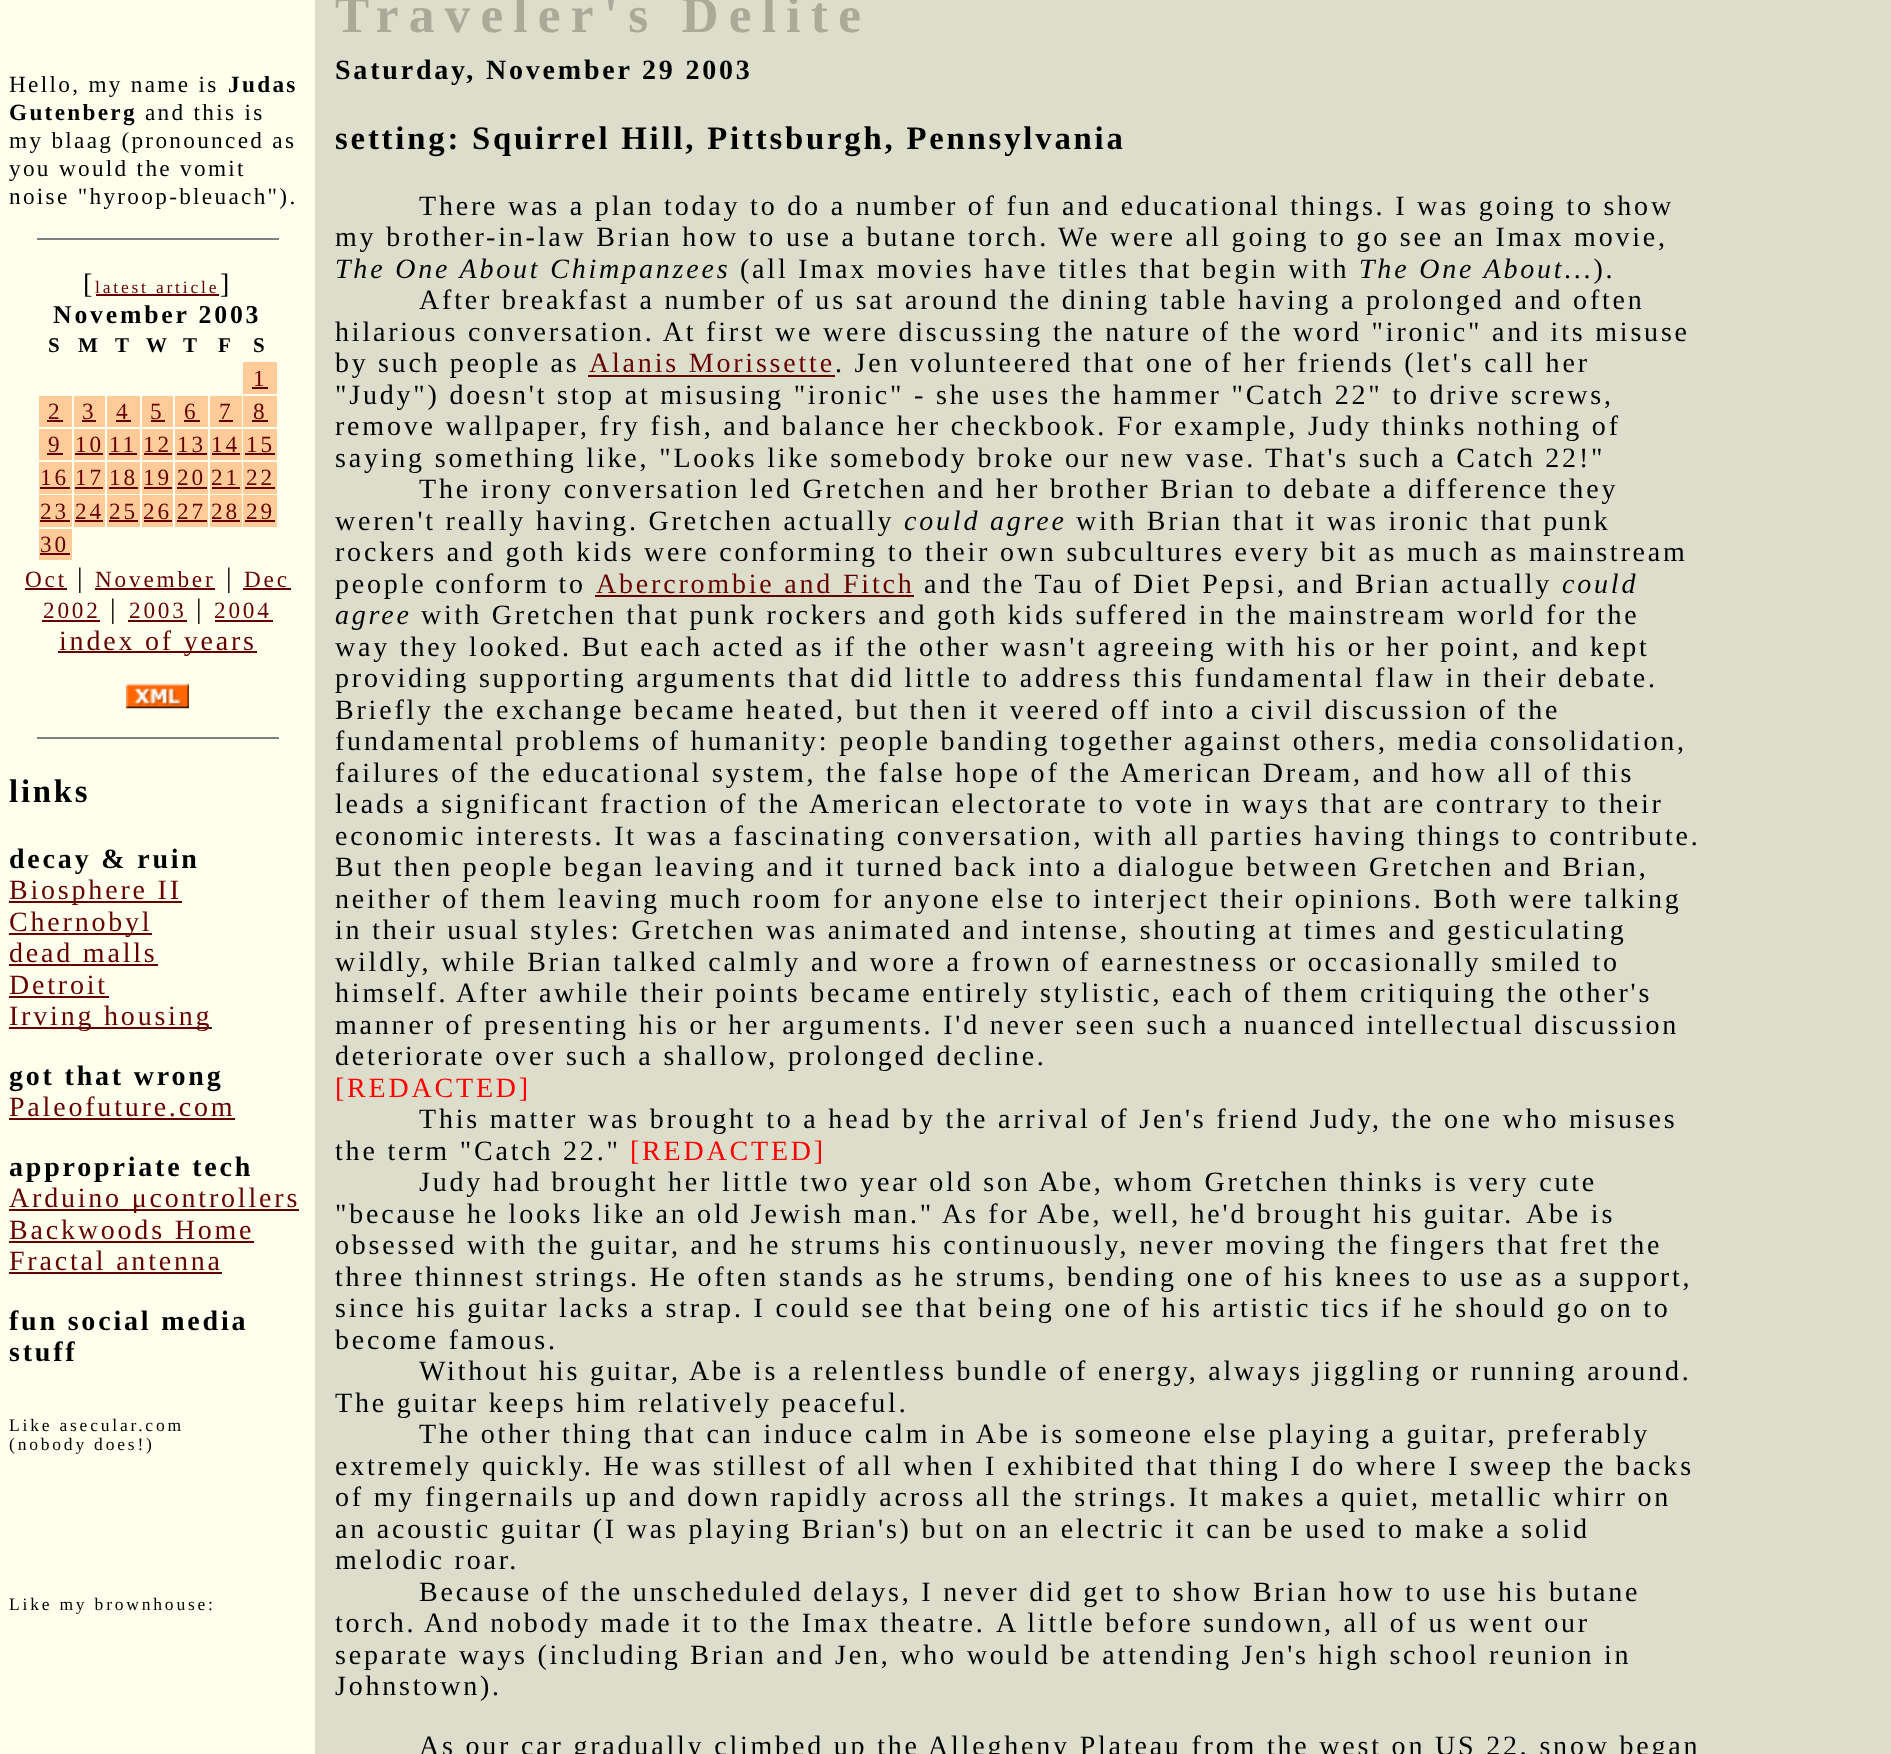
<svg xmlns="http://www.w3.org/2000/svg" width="1891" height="1754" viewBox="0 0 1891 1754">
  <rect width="100%" height="100%" fill="rgb(221,221,204)"/>
  <rect x="0" y="0" width="315" height="1754" fill="rgb(255,255,238)"/>
  <text x="9" y="92" font-family="Liberation Serif" font-size="23.25" letter-spacing="2.3" fill="rgb(0,0,0)">Hello, my name is</text>
  <g font-family="Liberation Serif" font-size="23.25" font-weight="bold" letter-spacing="2.3" fill="rgb(0,0,0)">
    <text x="228" y="92">Judas</text>
    <text x="9" y="120">Gutenberg</text>
  </g>
  <g font-family="Liberation Serif" font-size="23.25" letter-spacing="2.3" fill="rgb(0,0,0)">
    <text x="145" y="120">and this is</text>
    <text>
      <tspan x="9" y="148">my blaag (pronounced as</tspan>
      <tspan x="9" y="176">you would the vomit</tspan>
      <tspan x="9" y="204">noise "hyroop-bleuach").</tspan>
    </text>
  </g>
  <rect x="37" y="238" width="242" height="2" fill="rgb(128,128,128)"/>
  <text x="83" y="293" font-family="Liberation Serif" font-size="28" letter-spacing="2.8" fill="rgb(0,0,0)">[</text>
  <text x="95" y="293" font-family="Liberation Serif" font-size="17.5" letter-spacing="2.8" fill="rgb(102,0,0)">latest article</text>
  <rect x="96" y="294" width="123" height="2" fill="rgb(102,0,0)"/>
  <text x="220" y="293" font-family="Liberation Serif" font-size="28" letter-spacing="2.8" fill="rgb(0,0,0)">]</text>
  <text x="53" y="323" font-family="Liberation Serif" font-size="25.75" font-weight="bold" letter-spacing="2.8" fill="rgb(0,0,0)">November 2003</text>
  <g font-family="Liberation Serif" font-size="21" font-weight="bold" letter-spacing="2.8" fill="rgb(0,0,0)">
    <text x="48" y="352">S</text>
    <text x="78" y="352">M</text>
    <text x="115" y="352">T</text>
    <text x="146" y="352">W</text>
    <text x="183" y="352">T</text>
    <text x="218" y="352">F</text>
    <text x="253" y="352">S</text>
  </g>
  <rect x="243" y="362" width="34" height="32" fill="rgb(255,204,153)"/>
  <text x="253" y="386" font-family="Liberation Serif" font-size="23.25" letter-spacing="2.8" fill="rgb(102,0,0)">1</text>
  <rect x="252" y="387" width="16" height="2" fill="rgb(102,0,0)"/>
  <rect x="39" y="396" width="33" height="31" fill="rgb(255,204,153)"/>
  <text x="48" y="419" font-family="Liberation Serif" font-size="23.25" letter-spacing="2.8" fill="rgb(102,0,0)">2</text>
  <rect x="47" y="420" width="16" height="2" fill="rgb(102,0,0)"/>
  <rect x="74" y="396" width="31" height="31" fill="rgb(255,204,153)"/>
  <text x="82" y="419" font-family="Liberation Serif" font-size="23.25" letter-spacing="2.8" fill="rgb(102,0,0)">3</text>
  <rect x="82" y="420" width="14" height="2" fill="rgb(102,0,0)"/>
  <rect x="107" y="396" width="33" height="31" fill="rgb(255,204,153)"/>
  <text x="116" y="419" font-family="Liberation Serif" font-size="23.25" letter-spacing="2.8" fill="rgb(102,0,0)">4</text>
  <rect x="116" y="420" width="15" height="2" fill="rgb(102,0,0)"/>
  <rect x="142" y="396" width="31" height="31" fill="rgb(255,204,153)"/>
  <text x="150" y="419" font-family="Liberation Serif" font-size="23.25" letter-spacing="2.8" fill="rgb(102,0,0)">5</text>
  <rect x="151" y="420" width="14" height="2" fill="rgb(102,0,0)"/>
  <rect x="175" y="396" width="33" height="31" fill="rgb(255,204,153)"/>
  <text x="184" y="419" font-family="Liberation Serif" font-size="23.25" letter-spacing="2.8" fill="rgb(102,0,0)">6</text>
  <rect x="184" y="420" width="16" height="2" fill="rgb(102,0,0)"/>
  <rect x="210" y="396" width="32" height="31" fill="rgb(255,204,153)"/>
  <text x="219" y="419" font-family="Liberation Serif" font-size="23.25" letter-spacing="2.8" fill="rgb(102,0,0)">7</text>
  <rect x="219" y="420" width="14" height="2" fill="rgb(102,0,0)"/>
  <rect x="243" y="396" width="34" height="31" fill="rgb(255,204,153)"/>
  <text x="253" y="419" font-family="Liberation Serif" font-size="23.25" letter-spacing="2.8" fill="rgb(102,0,0)">8</text>
  <rect x="252" y="420" width="16" height="2" fill="rgb(102,0,0)"/>
  <rect x="39" y="429" width="33" height="31" fill="rgb(255,204,153)"/>
  <text x="48" y="452" font-family="Liberation Serif" font-size="23.25" letter-spacing="2.8" fill="rgb(102,0,0)">9</text>
  <rect x="47" y="453" width="16" height="2" fill="rgb(102,0,0)"/>
  <rect x="74" y="429" width="31" height="31" fill="rgb(255,204,153)"/>
  <text x="75" y="452" font-family="Liberation Serif" font-size="23.25" letter-spacing="2.8" fill="rgb(102,0,0)">10</text>
  <rect x="75" y="453" width="28" height="2" fill="rgb(102,0,0)"/>
  <rect x="107" y="429" width="33" height="31" fill="rgb(255,204,153)"/>
  <text x="109" y="452" font-family="Liberation Serif" font-size="23.25" letter-spacing="2.8" fill="rgb(102,0,0)">11</text>
  <rect x="109" y="453" width="28" height="2" fill="rgb(102,0,0)"/>
  <rect x="142" y="429" width="31" height="31" fill="rgb(255,204,153)"/>
  <text x="143" y="452" font-family="Liberation Serif" font-size="23.25" letter-spacing="2.8" fill="rgb(102,0,0)">12</text>
  <rect x="144" y="453" width="28" height="2" fill="rgb(102,0,0)"/>
  <rect x="175" y="429" width="33" height="31" fill="rgb(255,204,153)"/>
  <text x="177" y="452" font-family="Liberation Serif" font-size="23.25" letter-spacing="2.8" fill="rgb(102,0,0)">13</text>
  <rect x="177" y="453" width="30" height="2" fill="rgb(102,0,0)"/>
  <rect x="210" y="429" width="32" height="31" fill="rgb(255,204,153)"/>
  <text x="211" y="452" font-family="Liberation Serif" font-size="23.25" letter-spacing="2.8" fill="rgb(102,0,0)">14</text>
  <rect x="212" y="453" width="28" height="2" fill="rgb(102,0,0)"/>
  <rect x="243" y="429" width="34" height="31" fill="rgb(255,204,153)"/>
  <text x="246" y="452" font-family="Liberation Serif" font-size="23.25" letter-spacing="2.8" fill="rgb(102,0,0)">15</text>
  <rect x="245" y="453" width="30" height="2" fill="rgb(102,0,0)"/>
  <rect x="39" y="462" width="33" height="32" fill="rgb(255,204,153)"/>
  <text x="40" y="485" font-family="Liberation Serif" font-size="23.25" letter-spacing="2.8" fill="rgb(102,0,0)">16</text>
  <rect x="40" y="487" width="30" height="2" fill="rgb(102,0,0)"/>
  <rect x="74" y="462" width="31" height="32" fill="rgb(255,204,153)"/>
  <text x="75" y="485" font-family="Liberation Serif" font-size="23.25" letter-spacing="2.8" fill="rgb(102,0,0)">17</text>
  <rect x="75" y="487" width="28" height="2" fill="rgb(102,0,0)"/>
  <rect x="107" y="462" width="33" height="32" fill="rgb(255,204,153)"/>
  <text x="109" y="485" font-family="Liberation Serif" font-size="23.25" letter-spacing="2.8" fill="rgb(102,0,0)">18</text>
  <rect x="109" y="487" width="29" height="2" fill="rgb(102,0,0)"/>
  <rect x="142" y="462" width="31" height="32" fill="rgb(255,204,153)"/>
  <text x="143" y="485" font-family="Liberation Serif" font-size="23.25" letter-spacing="2.8" fill="rgb(102,0,0)">19</text>
  <rect x="144" y="487" width="28" height="2" fill="rgb(102,0,0)"/>
  <rect x="175" y="462" width="33" height="32" fill="rgb(255,204,153)"/>
  <text x="177" y="485" font-family="Liberation Serif" font-size="23.25" letter-spacing="2.8" fill="rgb(102,0,0)">20</text>
  <rect x="177" y="487" width="30" height="2" fill="rgb(102,0,0)"/>
  <rect x="210" y="462" width="32" height="32" fill="rgb(255,204,153)"/>
  <text x="211" y="485" font-family="Liberation Serif" font-size="23.25" letter-spacing="2.8" fill="rgb(102,0,0)">21</text>
  <rect x="212" y="487" width="28" height="2" fill="rgb(102,0,0)"/>
  <rect x="243" y="462" width="34" height="32" fill="rgb(255,204,153)"/>
  <text x="246" y="485" font-family="Liberation Serif" font-size="23.25" letter-spacing="2.8" fill="rgb(102,0,0)">22</text>
  <rect x="245" y="487" width="30" height="2" fill="rgb(102,0,0)"/>
  <rect x="39" y="495" width="33" height="32" fill="rgb(255,204,153)"/>
  <text x="40" y="519" font-family="Liberation Serif" font-size="23.25" letter-spacing="2.8" fill="rgb(102,0,0)">23</text>
  <rect x="40" y="520" width="30" height="2" fill="rgb(102,0,0)"/>
  <rect x="74" y="495" width="31" height="32" fill="rgb(255,204,153)"/>
  <text x="75" y="519" font-family="Liberation Serif" font-size="23.25" letter-spacing="2.8" fill="rgb(102,0,0)">24</text>
  <rect x="75" y="520" width="28" height="2" fill="rgb(102,0,0)"/>
  <rect x="107" y="495" width="33" height="32" fill="rgb(255,204,153)"/>
  <text x="109" y="519" font-family="Liberation Serif" font-size="23.25" letter-spacing="2.8" fill="rgb(102,0,0)">25</text>
  <rect x="109" y="520" width="29" height="2" fill="rgb(102,0,0)"/>
  <rect x="142" y="495" width="31" height="32" fill="rgb(255,204,153)"/>
  <text x="143" y="519" font-family="Liberation Serif" font-size="23.25" letter-spacing="2.8" fill="rgb(102,0,0)">26</text>
  <rect x="144" y="520" width="28" height="2" fill="rgb(102,0,0)"/>
  <rect x="175" y="495" width="33" height="32" fill="rgb(255,204,153)"/>
  <text x="177" y="519" font-family="Liberation Serif" font-size="23.25" letter-spacing="2.8" fill="rgb(102,0,0)">27</text>
  <rect x="177" y="520" width="30" height="2" fill="rgb(102,0,0)"/>
  <rect x="210" y="495" width="32" height="32" fill="rgb(255,204,153)"/>
  <text x="211" y="519" font-family="Liberation Serif" font-size="23.25" letter-spacing="2.8" fill="rgb(102,0,0)">28</text>
  <rect x="212" y="520" width="28" height="2" fill="rgb(102,0,0)"/>
  <rect x="243" y="495" width="34" height="32" fill="rgb(255,204,153)"/>
  <text x="246" y="519" font-family="Liberation Serif" font-size="23.25" letter-spacing="2.8" fill="rgb(102,0,0)">29</text>
  <rect x="245" y="520" width="30" height="2" fill="rgb(102,0,0)"/>
  <rect x="39" y="529" width="33" height="31" fill="rgb(255,204,153)"/>
  <text x="40" y="552" font-family="Liberation Serif" font-size="23.25" letter-spacing="2.8" fill="rgb(102,0,0)">30</text>
  <rect x="40" y="553" width="30" height="2" fill="rgb(102,0,0)"/>
  <text x="25" y="587" font-family="Liberation Serif" font-size="23.25" letter-spacing="2.8" fill="rgb(102,0,0)">Oct</text>
  <rect x="25" y="588" width="42" height="2" fill="rgb(102,0,0)"/>
  <text x="77" y="587" font-family="Liberation Serif" font-size="28" letter-spacing="2.8" fill="rgb(0,0,0)">|</text>
  <text x="95" y="587" font-family="Liberation Serif" font-size="23.25" letter-spacing="2.8" fill="rgb(102,0,0)">November</text>
  <rect x="95" y="588" width="120" height="2" fill="rgb(102,0,0)"/>
  <text x="226" y="587" font-family="Liberation Serif" font-size="28" letter-spacing="2.8" fill="rgb(0,0,0)">|</text>
  <text x="244" y="587" font-family="Liberation Serif" font-size="23.25" letter-spacing="2.8" fill="rgb(102,0,0)">Dec</text>
  <rect x="243" y="588" width="48" height="2" fill="rgb(102,0,0)"/>
  <text x="43" y="618" font-family="Liberation Serif" font-size="23.25" letter-spacing="2.8" fill="rgb(102,0,0)">2002</text>
  <rect x="42" y="620" width="58" height="2" fill="rgb(102,0,0)"/>
  <text x="110" y="618" font-family="Liberation Serif" font-size="28" letter-spacing="2.8" fill="rgb(0,0,0)">|</text>
  <text x="129" y="618" font-family="Liberation Serif" font-size="23.25" letter-spacing="2.8" fill="rgb(102,0,0)">2003</text>
  <rect x="128" y="620" width="59" height="2" fill="rgb(102,0,0)"/>
  <text x="196" y="618" font-family="Liberation Serif" font-size="28" letter-spacing="2.8" fill="rgb(0,0,0)">|</text>
  <text x="214" y="618" font-family="Liberation Serif" font-size="23.25" letter-spacing="2.8" fill="rgb(102,0,0)">2004</text>
  <rect x="215" y="620" width="58" height="2" fill="rgb(102,0,0)"/>
  <rect x="58" y="651" width="199" height="2" fill="rgb(102,0,0)"/>
  <text x="59" y="650" font-family="Liberation Serif" font-size="28" letter-spacing="2.8" fill="rgb(102,0,0)">index of years</text>
  <image x="126" y="683" width="63" height="26" href="pic1.png"/>
  <rect x="37" y="737" width="242" height="2" fill="rgb(128,128,128)"/>
  <text x="9" y="802" font-family="Liberation Serif" font-size="32.75" font-weight="bold" letter-spacing="2.8" fill="rgb(0,0,0)">links</text>
  <text x="9" y="868" font-family="Liberation Serif" font-size="28" font-weight="bold" letter-spacing="2.8" fill="rgb(0,0,0)">decay &amp; ruin</text>
  <rect x="9" y="901" width="173" height="2" fill="rgb(102,0,0)"/>
  <text x="9" y="899" font-family="Liberation Serif" font-size="28" letter-spacing="2.8" fill="rgb(102,0,0)">Biosphere II</text>
  <rect x="9" y="933" width="143" height="2" fill="rgb(102,0,0)"/>
  <g font-family="Liberation Serif" font-size="28" letter-spacing="2.8" fill="rgb(102,0,0)">
    <text>
      <tspan x="9" y="931">Chernobyl</tspan>
      <tspan x="9" y="962">dead malls</tspan>
    </text>
  </g>
  <rect x="9" y="964" width="149" height="2" fill="rgb(102,0,0)"/>
  <text x="9" y="994" font-family="Liberation Serif" font-size="28" letter-spacing="2.8" fill="rgb(102,0,0)">Detroit</text>
  <rect x="9" y="996" width="100" height="2" fill="rgb(102,0,0)"/>
  <rect x="9" y="1027" width="203" height="2" fill="rgb(102,0,0)"/>
  <text x="9" y="1025" font-family="Liberation Serif" font-size="28" letter-spacing="2.8" fill="rgb(102,0,0)">Irving housing</text>
  <text x="9" y="1085" font-family="Liberation Serif" font-size="28" font-weight="bold" letter-spacing="2.8" fill="rgb(0,0,0)">got that wrong</text>
  <text x="9" y="1116" font-family="Liberation Serif" font-size="28" letter-spacing="2.8" fill="rgb(102,0,0)">Paleofuture.com</text>
  <rect x="9" y="1118" width="226" height="2" fill="rgb(102,0,0)"/>
  <text x="9" y="1176" font-family="Liberation Serif" font-size="28" font-weight="bold" letter-spacing="2.8" fill="rgb(0,0,0)">appropriate tech</text>
  <rect x="9" y="1209" width="290" height="2" fill="rgb(102,0,0)"/>
  <g font-family="Liberation Serif" font-size="28" letter-spacing="2.8" fill="rgb(102,0,0)">
    <text>
      <tspan x="9" y="1207">Arduino μcontrollers</tspan>
      <tspan x="9" y="1239">Backwoods Home</tspan>
    </text>
  </g>
  <rect x="9" y="1241" width="245" height="2" fill="rgb(102,0,0)"/>
  <text x="9" y="1270" font-family="Liberation Serif" font-size="28" letter-spacing="2.8" fill="rgb(102,0,0)">Fractal antenna</text>
  <rect x="9" y="1272" width="213" height="2" fill="rgb(102,0,0)"/>
  <g font-family="Liberation Serif" font-size="28" font-weight="bold" letter-spacing="2.8" fill="rgb(0,0,0)">
    <text>
      <tspan x="9" y="1330">fun social media</tspan>
      <tspan x="9" y="1361">stuff</tspan>
    </text>
  </g>
  <g font-family="Liberation Serif" font-size="17.5" letter-spacing="2.8" fill="rgb(0,0,0)">
    <text>
      <tspan x="9" y="1431">Like asecular.com</tspan>
      <tspan x="9" y="1450">(nobody does!)</tspan>
    </text>
    <text x="9" y="1610">Like my brownhouse:</text>
  </g>
  <text x="335" y="32" font-family="Liberation Serif" font-size="51.25" font-weight="bold" letter-spacing="10.25" fill="rgb(170,170,153)">Traveler's Delite</text>
  <text x="335" y="79" font-family="Liberation Serif" font-size="28" font-weight="bold" letter-spacing="2.8" fill="rgb(0,0,0)">Saturday, November 29 2003</text>
  <text x="335" y="149" font-family="Liberation Serif" font-size="32.75" font-weight="bold" letter-spacing="2.8" fill="rgb(0,0,0)">setting: Squirrel Hill, Pittsburgh, Pennsylvania</text>
  <g font-family="Liberation Serif" font-size="28" letter-spacing="2.8" fill="rgb(0,0,0)">
    <text x="419" y="215">There was a plan today to do a number of fun and educational things. I was going to show</text>
    <text x="335" y="246">my brother-in-law Brian how to use a butane torch.</text>
    <text x="1058" y="246">We were all going to go see an Imax movie,</text>
  </g>
  <text x="335" y="278" font-family="Liberation Serif" font-size="28" font-style="italic" letter-spacing="2.8" fill="rgb(0,0,0)">The One About Chimpanzees</text>
  <text x="740" y="278" font-family="Liberation Serif" font-size="28" letter-spacing="2.8" fill="rgb(0,0,0)">(all Imax movies have titles that begin with</text>
  <text x="1359" y="278" font-family="Liberation Serif" font-size="28" font-style="italic" letter-spacing="2.8" fill="rgb(0,0,0)">The One About</text>
  <g font-family="Liberation Serif" font-size="28" letter-spacing="2.8" fill="rgb(0,0,0)">
    <text x="1564" y="278">...).</text>
    <text x="419" y="309">After breakfast a number of us sat around the dining table having a prolonged and often</text>
    <text>
      <tspan x="335" y="341">hilarious conversation. At first we were discussing the nature of the word "ironic" and its misuse</tspan>
      <tspan x="335" y="372" word-spacing="-0.5">by such people as</tspan>
    </text>
  </g>
  <text x="589" y="372" font-family="Liberation Serif" font-size="28" letter-spacing="2.8" fill="rgb(102,0,0)">Alanis Morissette</text>
  <rect x="588" y="375" width="247" height="2" fill="rgb(102,0,0)"/>
  <g font-family="Liberation Serif" font-size="28" letter-spacing="2.8" fill="rgb(0,0,0)">
    <text x="835" y="372">. Jen volunteered that one of her friends (let's call her</text>
    <text>
      <tspan x="335" y="404">"Judy") doesn't stop at misusing "ironic" - she uses the hammer "Catch 22" to drive screws,</tspan>
      <tspan x="335" y="435">remove wallpaper, fry fish, and balance her checkbook. For example, Judy thinks nothing of</tspan>
      <tspan x="335" y="467">saying something like, "Looks like somebody broke our new vase.</tspan>
    </text>
    <text x="1265" y="467">That's such a Catch 22!"</text>
    <text x="419" y="498">The irony conversation led Gretchen and her brother Brian to debate a difference they</text>
    <text x="335" y="530">weren't really having. Gretchen actually</text>
  </g>
  <text x="904" y="530" font-family="Liberation Serif" font-size="28" font-style="italic" letter-spacing="2.8" fill="rgb(0,0,0)">could agree</text>
  <g font-family="Liberation Serif" font-size="28" letter-spacing="2.8" fill="rgb(0,0,0)">
    <text x="1076" y="530">with Brian that it was ironic that punk</text>
    <text>
      <tspan x="335" y="561">rockers and goth kids were conforming to their own subcultures every bit as much as mainstream</tspan>
      <tspan x="335" y="593" word-spacing="-1">people conform to</tspan>
    </text>
  </g>
  <text x="596" y="593" font-family="Liberation Serif" font-size="28" letter-spacing="2.8" fill="rgb(102,0,0)">Abercrombie and Fitch</text>
  <rect x="595" y="595" width="319" height="2" fill="rgb(102,0,0)"/>
  <text x="924" y="593" font-family="Liberation Serif" font-size="28" letter-spacing="2.8" fill="rgb(0,0,0)">and the Tau of Diet Pepsi, and Brian actually</text>
  <g font-family="Liberation Serif" font-size="28" font-style="italic" letter-spacing="2.8" fill="rgb(0,0,0)">
    <text x="1562" y="593">could</text>
    <text x="335" y="624">agree</text>
  </g>
  <g font-family="Liberation Serif" font-size="28" letter-spacing="2.8" fill="rgb(0,0,0)">
    <text x="421" y="624">with Gretchen that punk rockers and goth kids suffered in the mainstream world for the</text>
    <text>
      <tspan x="335" y="656">way they looked. But each acted as if the other wasn't agreeing with his or her point, and kept</tspan>
      <tspan x="335" y="687">providing supporting arguments that did little to address this fundamental flaw in their debate.</tspan>
      <tspan x="335" y="719">Briefly the exchange became heated, but then it veered off into a civil discussion of the</tspan>
      <tspan x="335" y="750">fundamental problems of humanity: people banding together against others, media consolidation,</tspan>
      <tspan x="335" y="782">failures of the educational system, the false hope of the American Dream, and how all of this</tspan>
      <tspan x="335" y="813">leads a significant fraction of the American electorate to vote in ways that are contrary to their</tspan>
      <tspan x="335" y="845">economic interests. It was a fascinating conversation, with all parties having things to contribute.</tspan>
      <tspan x="335" y="876">But then people began leaving and it turned back into a dialogue between Gretchen and Brian,</tspan>
      <tspan x="335" y="908">neither of them leaving much room for anyone else to interject their opinions. Both were talking</tspan>
      <tspan x="335" y="939">in their usual styles: Gretchen was animated and intense, shouting at times and gesticulating</tspan>
      <tspan x="335" y="971">wildly, while Brian talked calmly and wore a frown of earnestness or occasionally smiled to</tspan>
      <tspan x="335" y="1002">himself.</tspan>
    </text>
    <text x="456" y="1002">After awhile their points became entirely stylistic, each of them critiquing the other's</text>
    <text>
      <tspan x="335" y="1034">manner of presenting his or her arguments. I'd never seen such a nuanced intellectual discussion</tspan>
      <tspan x="335" y="1065">deteriorate over such a shallow, prolonged decline.</tspan>
    </text>
  </g>
  <text x="335" y="1097" font-family="Liberation Serif" font-size="28" letter-spacing="2.8" fill="rgb(255,0,0)">[REDACTED]</text>
  <g font-family="Liberation Serif" font-size="28" letter-spacing="2.8" fill="rgb(0,0,0)">
    <text x="419" y="1128">This matter was brought to a head by the arrival of Jen's friend Judy, the one who misuses</text>
    <text x="335" y="1160">the term "Catch 22."</text>
  </g>
  <text x="630" y="1160" font-family="Liberation Serif" font-size="28" letter-spacing="2.8" fill="rgb(255,0,0)">[REDACTED]</text>
  <g font-family="Liberation Serif" font-size="28" letter-spacing="2.8" fill="rgb(0,0,0)">
    <text x="419" y="1191">Judy had brought her little two year old son Abe, whom Gretchen thinks is very cute</text>
    <text x="335" y="1223" word-spacing="-0.25">"because he looks like an old Jewish man." As for Abe, well, he'd brought his guitar.</text>
    <text x="1526" y="1223">Abe is</text>
    <text>
      <tspan x="335" y="1254">obsessed with the guitar, and he strums his continuously, never moving the fingers that fret the</tspan>
      <tspan x="335" y="1286">three thinnest strings. He often stands as he strums, bending one of his knees to use as a support,</tspan>
      <tspan x="335" y="1317">since his guitar lacks a strap. I could see that being one of his artistic tics if he should go on to</tspan>
      <tspan x="335" y="1349">become famous.</tspan>
    </text>
    <text x="419" y="1380">Without his guitar, Abe is a relentless bundle of energy, always jiggling or running around.</text>
    <text x="335" y="1412">The guitar keeps him relatively peaceful.</text>
    <text x="419" y="1443">The other thing that can induce calm in Abe is someone else playing a guitar, preferably</text>
    <text>
      <tspan x="335" y="1475">extremely quickly. He was stillest of all when I exhibited that thing I do where I sweep the backs</tspan>
      <tspan x="335" y="1506">of my fingernails up and down rapidly across all the strings. It makes a quiet, metallic whirr on</tspan>
      <tspan x="335" y="1538">an acoustic guitar (I was playing Brian's) but on an electric it can be used to make a solid</tspan>
      <tspan x="335" y="1569">melodic roar.</tspan>
    </text>
    <text x="419" y="1601">Because of the unscheduled delays, I never did get to show Brian how to use his butane</text>
    <text x="335" y="1632">torch.</text>
    <text x="424" y="1632" word-spacing="-0.25">And nobody made it to the Imax theatre.</text>
    <text x="996" y="1632">A little before sundown, all of us went our</text>
    <text>
      <tspan x="335" y="1664">separate ways (including Brian and Jen, who would be attending Jen's high school reunion in</tspan>
      <tspan x="335" y="1695">Johnstown).</tspan>
    </text>
    <text x="419" y="1755">As our car gradually climbed up the Allegheny Plateau from the west on US 22, snow began</text>
  </g>
</svg>
